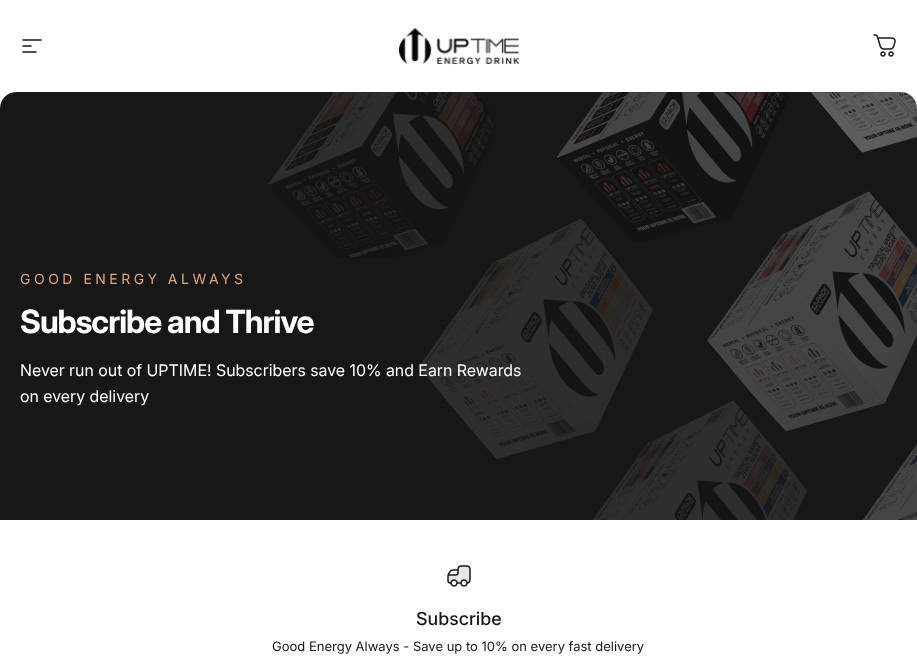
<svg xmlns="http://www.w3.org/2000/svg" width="917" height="672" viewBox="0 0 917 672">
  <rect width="100%" height="100%" fill="rgb(255,255,255)"/>
  <path d="M23 40H41M23 46H31M23 52H36" fill="none" stroke="rgb(23,23,23)" stroke-width="1.5" stroke-linecap="round"/>
  <image x="399" y="28" width="120" height="37" href="pic1.png"/>
  <image x="873" y="34" width="23" height="23" href="pic2.png"/>
  <rect x="0" y="92" width="917" height="428" fill="rgb(23,23,23)"/>
  <image x="0" y="92" width="16" height="16" href="pic3.png"/>
  <image x="557" y="92" width="232" height="151" href="pic9.png"/>
  <image x="811" y="92" width="106" height="61" href="pic12.png"/>
  <rect x="603" y="92" width="303" height="1" fill="rgba(23,23,23,0.11)"/>
  <image x="901" y="92" width="16" height="16" href="pic4.png"/>
  <image x="191" y="92" width="2" height="1" href="pic5.png"/>
  <image x="268" y="92" width="226" height="166" href="pic6.png"/>
  <image x="419" y="218" width="234" height="241" href="pic7.png"/>
  <image x="707" y="191" width="210" height="240" href="pic10.png"/>
  <image x="593" y="400" width="214" height="120" href="pic8.png"/>
  <image x="863" y="444" width="54" height="76" href="pic11.png"/>
  <text x="20" y="284" font-family="Inter" font-size="14" letter-spacing="3.5" fill="rgb(224,165,128)">GOOD ENERGY ALWAYS</text>
  <text x="20" y="333" font-family="Inter" font-size="32" font-weight="bold" letter-spacing="-1" fill="rgb(255,255,255)">Subscribe and Thrive</text>
  <g font-family="'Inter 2'" font-size="16" fill="rgb(255,255,255)">
    <text>
      <tspan x="20" y="376">Never run out of UPTIME! Subscribers save 10% and Earn Rewards</tspan>
      <tspan x="20" y="402">on every delivery</tspan>
    </text>
  </g>
  <image x="447" y="565" width="24" height="22" href="pic13.png"/>
  <text x="416" y="625" font-family="Inter" font-size="18" font-weight="500" fill="rgb(23,23,23)">Subscribe</text>
  <text x="272" y="651" font-family="Inter" font-size="13" fill="rgb(23,23,23)">Good Energy Always - Save up to 10% on every fast delivery</text>
</svg>
